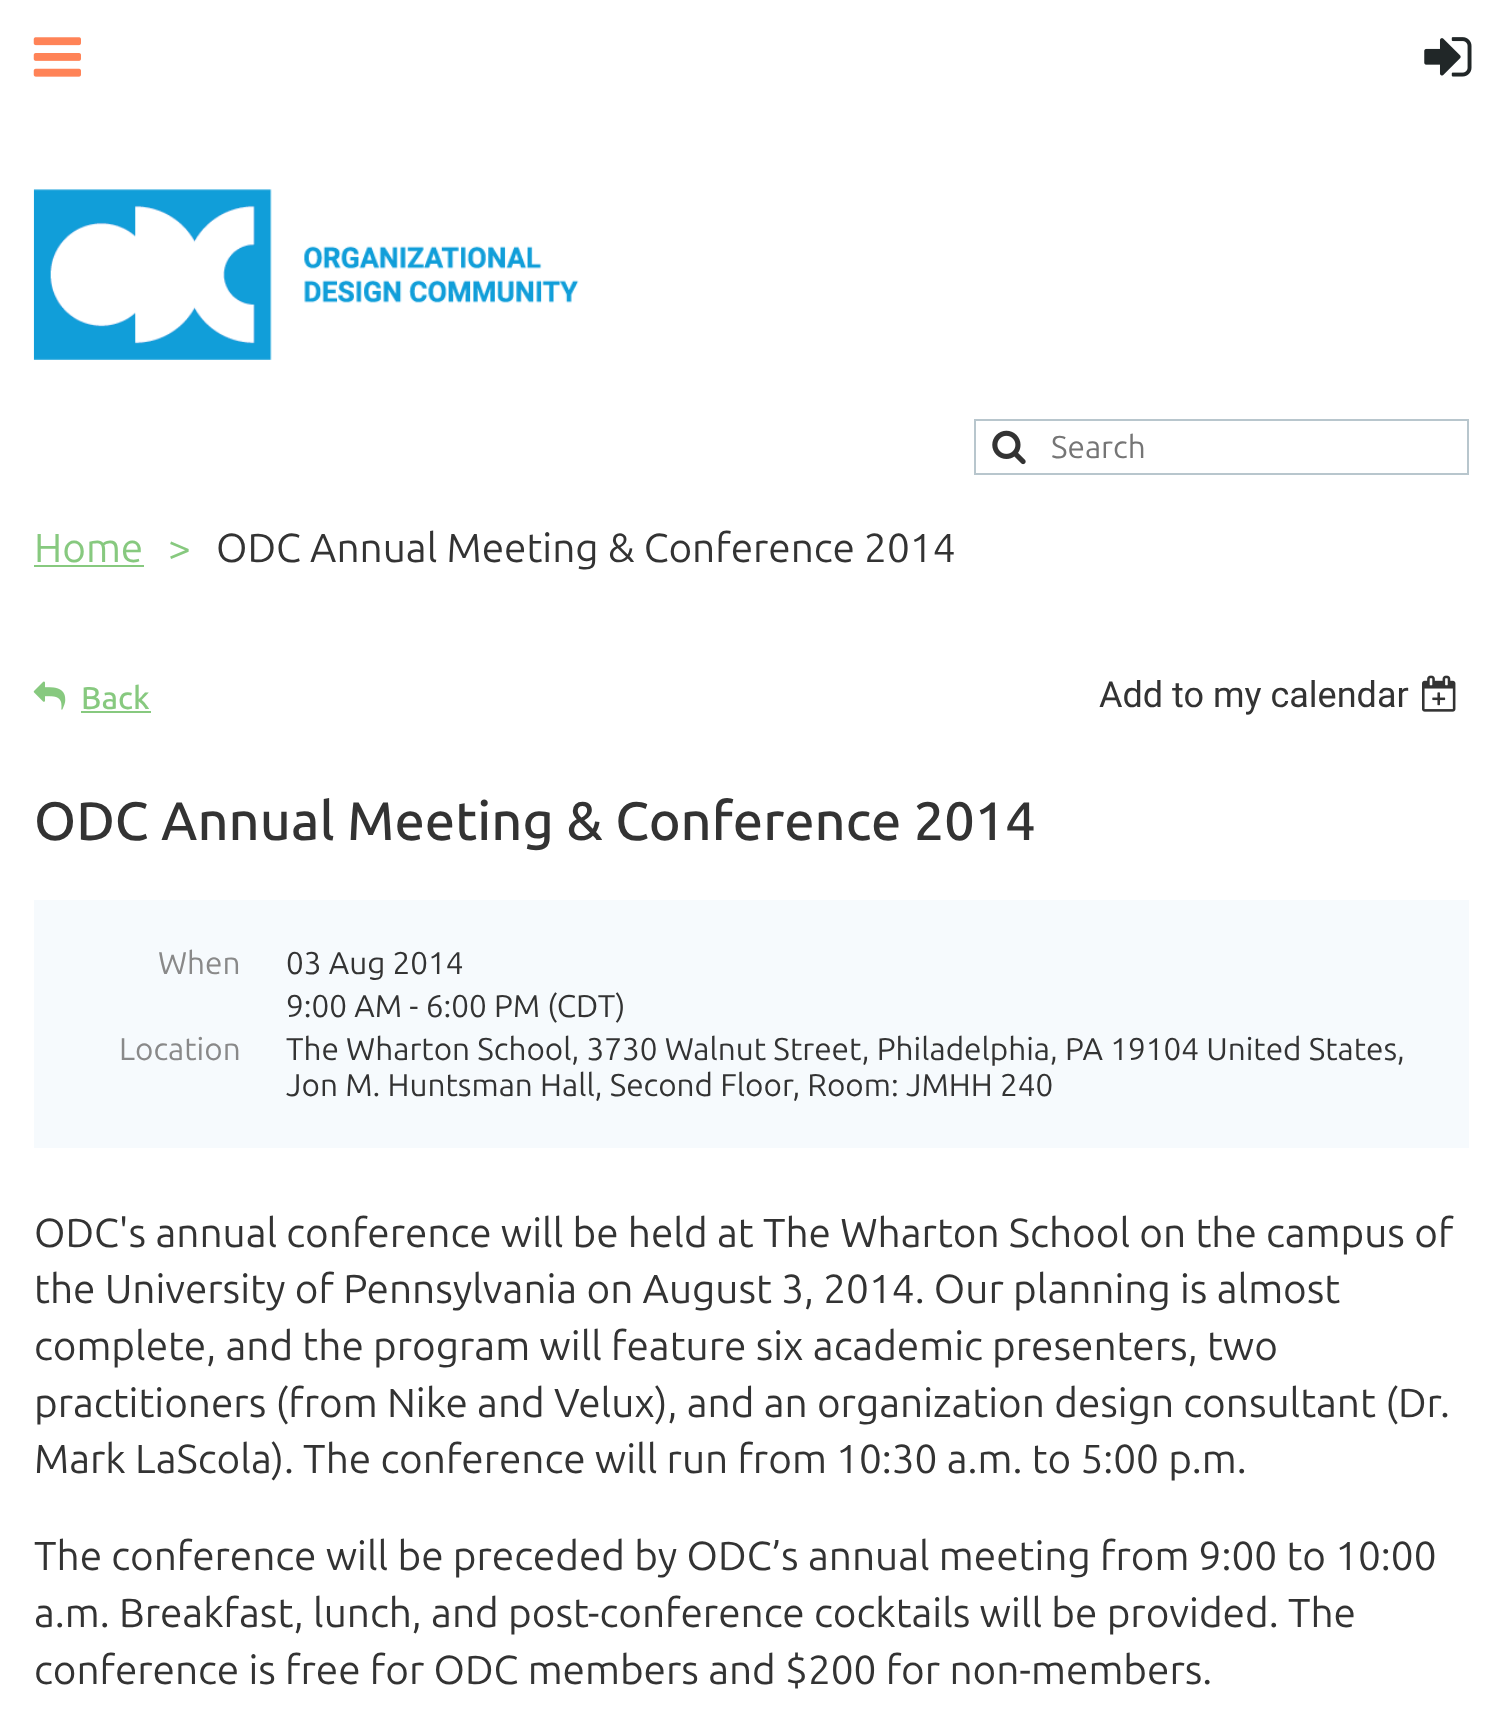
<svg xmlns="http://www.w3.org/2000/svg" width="1503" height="1734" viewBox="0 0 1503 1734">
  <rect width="100%" height="100%" fill="rgb(255,255,255)"/>
  <image x="33" y="37" width="48" height="40" href="pic1.png"/>
  <image x="1424" y="37" width="48" height="40" href="pic2.png"/>
  <image x="33" y="189" width="546" height="171" href="pic3.png"/>
  <rect x="975" y="420" width="493" height="54" fill="none" stroke="rgb(184,198,205)" stroke-width="2"/>
  <image x="992" y="430" width="34" height="35" href="pic4.png"/>
  <text x="1051" y="458" font-family="Ubuntu" font-size="31.5" fill="rgb(117,117,117)">Search</text>
  <text x="34" y="562" font-family="Ubuntu" font-size="40.5" fill="rgb(135,201,127)">Home</text>
  <rect x="34" y="565" width="110" height="2" fill="rgb(135,201,127)"/>
  <text x="168" y="562" font-family="Ubuntu" font-size="40.5" fill="rgb(135,201,127)">&gt;</text>
  <text x="216" y="562" font-family="Ubuntu" font-size="40.5" fill="rgb(51,51,51)">ODC Annual Meeting &amp; Conference 2014</text>
  <image x="33" y="681" width="33" height="29" href="pic5.png"/>
  <text x="81" y="709" font-family="Ubuntu" font-size="31.5" font-weight="500" fill="rgb(135,201,127)">Back</text>
  <rect x="81" y="711" width="70" height="2" fill="rgb(135,201,127)"/>
  <text x="1099" y="707" font-family="Roboto" font-size="36" fill="rgb(51,51,51)">Add to my calendar</text>
  <image x="1422" y="675" width="34" height="37" href="pic6.png"/>
  <text x="34" y="840" font-family="Ubuntu" font-size="54" font-weight="500" fill="rgb(51,51,51)">ODC Annual Meeting &amp; Conference 2014</text>
  <rect x="34" y="900" width="1435" height="248" fill="rgb(246,250,253)"/>
  <text x="158" y="974" font-family="Ubuntu" font-size="31.5" fill="rgb(137,137,137)">When</text>
  <g font-family="Ubuntu" font-size="31.5" fill="rgb(51,51,51)">
    <text>
      <tspan x="286" y="974">03 Aug 2014</tspan>
      <tspan x="286" y="1017">9:00 AM - 6:00 PM (CDT)</tspan>
    </text>
  </g>
  <text x="119" y="1060" font-family="Ubuntu" font-size="31.5" fill="rgb(137,137,137)">Location</text>
  <g font-family="Ubuntu" font-size="31.5" fill="rgb(51,51,51)">
    <text>
      <tspan x="286" y="1060">The Wharton School, 3730 Walnut Street, Philadelphia, PA 19104 United States,</tspan>
      <tspan x="286" y="1096">Jon M. Huntsman Hall, Second Floor, Room: JMHH 240</tspan>
    </text>
  </g>
  <g font-family="Ubuntu" font-size="40.5" fill="rgb(51,51,51)">
    <text>
      <tspan x="34" y="1247">ODC's annual conference will be held at The Wharton School on the campus of</tspan>
      <tspan x="34" y="1303">the University of Pennsylvania on August 3, 2014. Our planning is almost</tspan>
      <tspan x="34" y="1360">complete, and the program will feature six academic presenters, two</tspan>
      <tspan x="34" y="1417">practitioners (from Nike and Velux), and an organization design consultant (Dr.</tspan>
      <tspan x="34" y="1473">Mark LaScola). The conference will run from 10:30 a.m. to 5:00 p.m.</tspan>
    </text>
    <text>
      <tspan x="34" y="1570">The conference will be preceded by ODC’s annual meeting from 9:00 to 10:00</tspan>
      <tspan x="34" y="1627">a.m. Breakfast, lunch, and post-conference cocktails will be provided. The</tspan>
      <tspan x="34" y="1684">conference is free for ODC members and $200 for non-members.</tspan>
    </text>
  </g>
</svg>
